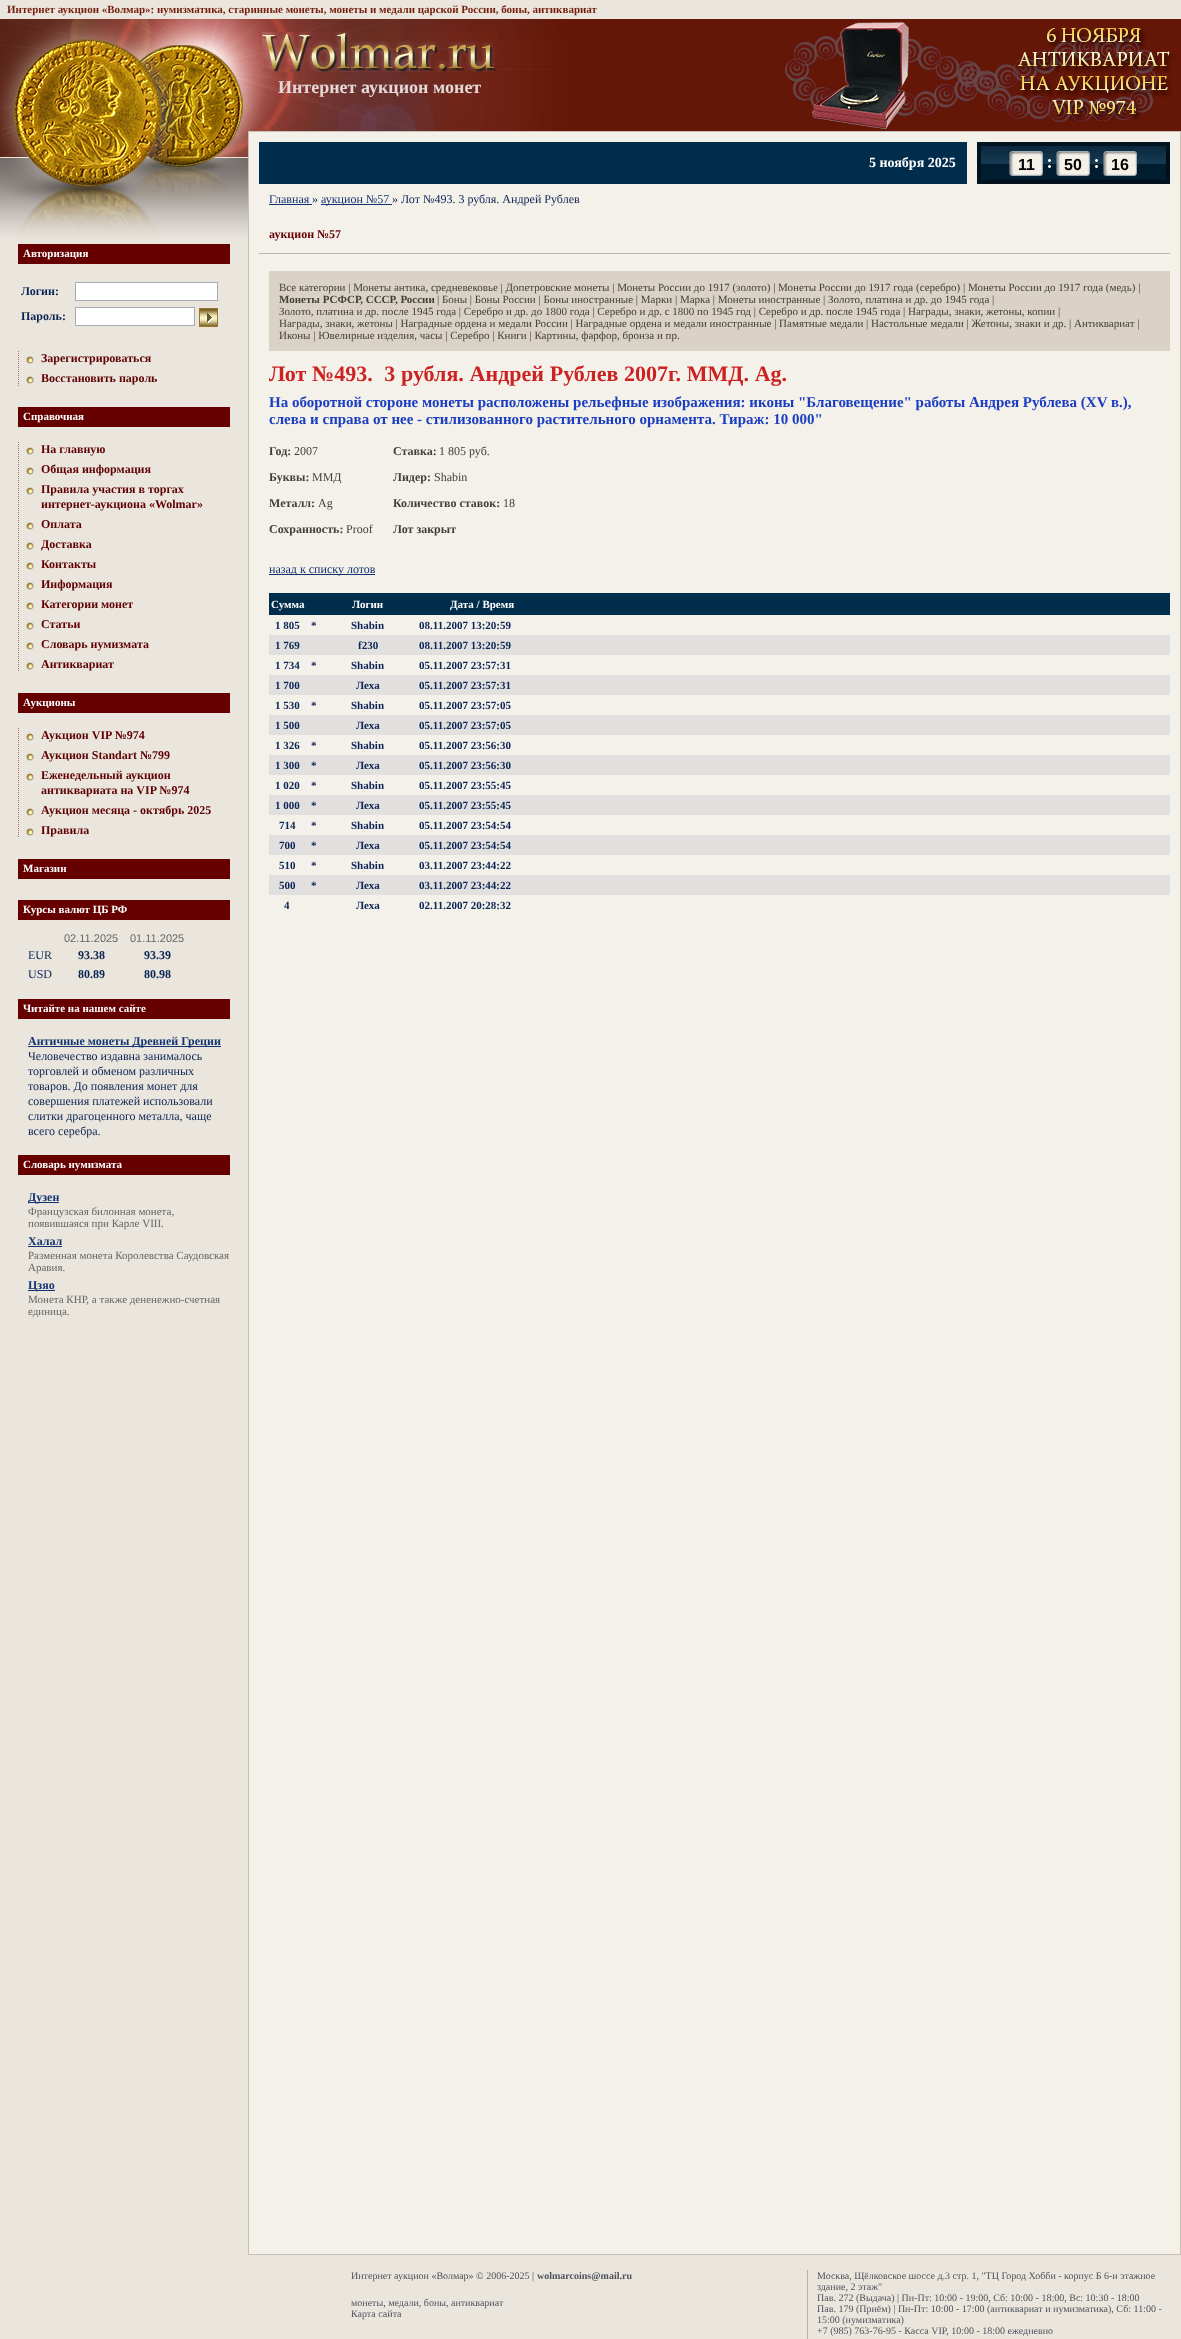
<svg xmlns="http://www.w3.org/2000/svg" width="1181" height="2339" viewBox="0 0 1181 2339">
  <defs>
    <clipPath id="clip1"><rect x="269" y="361" width="901" height="181"/></clipPath>
  </defs>
  <rect width="100%" height="100%" fill="rgb(234,230,222)"/>
  <image x="574" y="19" width="607" height="112" href="pic1.png"/>
  <text x="7" y="13" font-family="Liberation Serif" font-size="11" font-weight="bold" fill="rgb(117,30,13)">Интернет аукцион «Волмар»: нумизматика, старинные монеты, монеты и медали царской России, боны, антиквариат</text>
  <image x="0" y="19" width="1181" height="2235" href="pic2.png"/>
  <image x="262" y="32" width="236" height="40" href="pic3.png"/>
  <text x="278" y="93" font-family="Liberation Serif" font-size="18" font-weight="bold" fill="rgb(228,217,216)">Интернет аукцион монет</text>
  <image x="785" y="22" width="389" height="107" href="pic4.png"/>
  <rect x="18" y="244" width="212" height="20" fill="rgb(102,0,0)"/>
  <text x="23" y="257" font-family="Liberation Serif" font-size="11" font-weight="bold" fill="rgb(255,255,255)">Авторизация</text>
  <text x="21" y="295" font-family="Liberation Serif" font-size="12" font-weight="bold" fill="rgb(11,36,83)">Логин:</text>
  <rect x="75.5" y="282.5" width="142" height="18" fill="rgb(255,255,255)" stroke="rgb(165,172,178)"/>
  <text x="21" y="320" font-family="Liberation Serif" font-size="12" font-weight="bold" fill="rgb(11,36,83)">Пароль:</text>
  <rect x="75.5" y="307.5" width="119" height="18" fill="rgb(255,255,255)" stroke="rgb(165,172,178)"/>
  <image x="199" y="308" width="19" height="19" href="pic5.png"/>
  <path d="M18.5 351V386" fill="none" stroke="rgb(165,110,105)" stroke-dasharray="1 1"/>
  <image x="26" y="356" width="8" height="8" href="pic6.png"/>
  <text x="41" y="362" font-family="Liberation Serif" font-size="12" font-weight="bold" fill="rgb(95,1,1)">Зарегистрироваться</text>
  <image x="26" y="376" width="8" height="8" href="pic6.png"/>
  <text x="41" y="382" font-family="Liberation Serif" font-size="12" font-weight="bold" fill="rgb(95,1,1)">Восстановить пароль</text>
  <rect x="18" y="407" width="212" height="20" fill="rgb(102,0,0)"/>
  <text x="23" y="420" font-family="Liberation Serif" font-size="11" font-weight="bold" fill="rgb(255,255,255)">Справочная</text>
  <path d="M18.5 442V672" fill="none" stroke="rgb(165,110,105)" stroke-dasharray="1 1"/>
  <image x="26" y="447" width="8" height="8" href="pic6.png"/>
  <text x="41" y="453" font-family="Liberation Serif" font-size="12" font-weight="bold" fill="rgb(95,1,1)">На главную</text>
  <image x="26" y="467" width="8" height="8" href="pic6.png"/>
  <text x="41" y="473" font-family="Liberation Serif" font-size="12" font-weight="bold" fill="rgb(95,1,1)">Общая информация</text>
  <image x="26" y="487" width="8" height="8" href="pic6.png"/>
  <g font-family="Liberation Serif" font-size="12" font-weight="bold" fill="rgb(95,1,1)">
    <text>
      <tspan x="41" y="493">Правила участия в торгах</tspan>
      <tspan x="41" y="508">интернет-аукциона «Wolmar»</tspan>
    </text>
  </g>
  <image x="26" y="522" width="8" height="8" href="pic6.png"/>
  <text x="41" y="528" font-family="Liberation Serif" font-size="12" font-weight="bold" fill="rgb(95,1,1)">Оплата</text>
  <image x="26" y="542" width="8" height="8" href="pic6.png"/>
  <text x="41" y="548" font-family="Liberation Serif" font-size="12" font-weight="bold" fill="rgb(95,1,1)">Доставка</text>
  <image x="26" y="562" width="8" height="8" href="pic6.png"/>
  <text x="41" y="568" font-family="Liberation Serif" font-size="12" font-weight="bold" fill="rgb(95,1,1)">Контакты</text>
  <image x="26" y="582" width="8" height="8" href="pic6.png"/>
  <text x="41" y="588" font-family="Liberation Serif" font-size="12" font-weight="bold" fill="rgb(95,1,1)">Информация</text>
  <image x="26" y="602" width="8" height="8" href="pic6.png"/>
  <text x="41" y="608" font-family="Liberation Serif" font-size="12" font-weight="bold" fill="rgb(95,1,1)">Категории монет</text>
  <image x="26" y="622" width="8" height="8" href="pic6.png"/>
  <text x="41" y="628" font-family="Liberation Serif" font-size="12" font-weight="bold" fill="rgb(95,1,1)">Статьи</text>
  <image x="26" y="642" width="8" height="8" href="pic6.png"/>
  <text x="41" y="648" font-family="Liberation Serif" font-size="12" font-weight="bold" fill="rgb(95,1,1)">Словарь нумизмата</text>
  <image x="26" y="662" width="8" height="8" href="pic6.png"/>
  <text x="41" y="668" font-family="Liberation Serif" font-size="12" font-weight="bold" fill="rgb(95,1,1)">Антиквариат</text>
  <rect x="18" y="693" width="212" height="20" fill="rgb(102,0,0)"/>
  <text x="23" y="706" font-family="Liberation Serif" font-size="11" font-weight="bold" fill="rgb(255,255,255)">Аукционы</text>
  <path d="M18.5 728V838" fill="none" stroke="rgb(165,110,105)" stroke-dasharray="1 1"/>
  <image x="26" y="733" width="8" height="8" href="pic6.png"/>
  <text x="41" y="739" font-family="Liberation Serif" font-size="12" font-weight="bold" fill="rgb(95,1,1)">Аукцион VIP №974</text>
  <image x="26" y="753" width="8" height="8" href="pic6.png"/>
  <text x="41" y="759" font-family="Liberation Serif" font-size="12" font-weight="bold" fill="rgb(95,1,1)">Аукцион Standart №799</text>
  <image x="26" y="773" width="8" height="8" href="pic6.png"/>
  <g font-family="Liberation Serif" font-size="12" font-weight="bold" fill="rgb(95,1,1)">
    <text>
      <tspan x="41" y="779">Еженедельный аукцион</tspan>
      <tspan x="41" y="794">антиквариата на VIP №974</tspan>
    </text>
  </g>
  <image x="26" y="808" width="8" height="8" href="pic6.png"/>
  <text x="41" y="814" font-family="Liberation Serif" font-size="12" font-weight="bold" fill="rgb(95,1,1)">Аукцион месяца - октябрь 2025</text>
  <image x="26" y="828" width="8" height="8" href="pic6.png"/>
  <text x="41" y="834" font-family="Liberation Serif" font-size="12" font-weight="bold" fill="rgb(95,1,1)">Правила</text>
  <rect x="18" y="859" width="212" height="20" fill="rgb(102,0,0)"/>
  <text x="23" y="872" font-family="Liberation Serif" font-size="11" font-weight="bold" fill="rgb(255,255,255)">Магазин</text>
  <rect x="18" y="900" width="212" height="20" fill="rgb(102,0,0)"/>
  <text x="23" y="913" font-family="Liberation Serif" font-size="11" font-weight="bold" fill="rgb(255,255,255)">Курсы валют ЦБ РФ</text>
  <g font-family="Liberation Sans" font-size="11" fill="rgb(102,102,102)">
    <text x="64" y="942">02.11.2025</text>
    <text x="130" y="942">01.11.2025</text>
  </g>
  <text x="28" y="959" font-family="Liberation Serif" font-size="12" fill="rgb(11,36,83)">EUR</text>
  <g font-family="Liberation Serif" font-size="12" font-weight="bold" fill="rgb(11,36,83)">
    <text x="78" y="959">93.38</text>
    <text x="144" y="959">93.39</text>
  </g>
  <text x="28" y="978" font-family="Liberation Serif" font-size="12" fill="rgb(11,36,83)">USD</text>
  <g font-family="Liberation Serif" font-size="12" font-weight="bold" fill="rgb(11,36,83)">
    <text x="78" y="978">80.89</text>
    <text x="144" y="978">80.98</text>
  </g>
  <rect x="18" y="999" width="212" height="20" fill="rgb(102,0,0)"/>
  <text x="23" y="1012" font-family="Liberation Serif" font-size="11" font-weight="bold" fill="rgb(255,255,255)">Читайте на нашем сайте</text>
  <rect x="28" y="1046" width="193" height="1" fill="rgb(19,52,112)"/>
  <text x="28" y="1045" font-family="Liberation Serif" font-size="12" font-weight="bold" fill="rgb(19,52,112)">Античные монеты Древней Греции</text>
  <g font-family="Liberation Serif" font-size="12" fill="rgb(11,36,83)">
    <text>
      <tspan x="28" y="1060">Человечество издавна занималось</tspan>
      <tspan x="28" y="1075">торговлей и обменом различных</tspan>
      <tspan x="28" y="1090">товаров. До появления монет для</tspan>
      <tspan x="28" y="1105">совершения платежей использовали</tspan>
      <tspan x="28" y="1120">слитки драгоценного металла, чаще</tspan>
      <tspan x="28" y="1135">всего серебра.</tspan>
    </text>
  </g>
  <rect x="18" y="1155" width="212" height="20" fill="rgb(102,0,0)"/>
  <text x="23" y="1168" font-family="Liberation Serif" font-size="11" font-weight="bold" fill="rgb(255,255,255)">Словарь нумизмата</text>
  <rect x="28" y="1202" width="31" height="1" fill="rgb(19,52,112)"/>
  <text x="28" y="1201" font-family="Liberation Serif" font-size="12" font-weight="bold" fill="rgb(19,52,112)">Дузен</text>
  <g font-family="Liberation Serif" font-size="11" fill="rgb(102,102,102)">
    <text>
      <tspan x="28" y="1215">Французская билонная монета,</tspan>
      <tspan x="28" y="1227">появившаяся при Карле VIII.</tspan>
    </text>
  </g>
  <text x="28" y="1245" font-family="Liberation Serif" font-size="12" font-weight="bold" fill="rgb(19,52,112)">Халал</text>
  <rect x="28" y="1246" width="34" height="1" fill="rgb(19,52,112)"/>
  <g font-family="Liberation Serif" font-size="11" fill="rgb(102,102,102)">
    <text>
      <tspan x="28" y="1259">Разменная монета Королевства Саудовская</tspan>
      <tspan x="28" y="1271">Аравия.</tspan>
    </text>
  </g>
  <rect x="28" y="1290" width="27" height="1" fill="rgb(19,52,112)"/>
  <text x="28" y="1289" font-family="Liberation Serif" font-size="12" font-weight="bold" fill="rgb(19,52,112)">Цзяо</text>
  <g font-family="Liberation Serif" font-size="11" fill="rgb(102,102,102)">
    <text>
      <tspan x="28" y="1303">Монета КНР, а также дененежно-счетная</tspan>
      <tspan x="28" y="1315">единица.</tspan>
    </text>
  </g>
  <rect x="249" y="132" width="931" height="2122" fill="rgb(244,241,235)"/>
  <rect x="248" y="2254" width="933" height="1" fill="rgb(200,192,181)"/>
  <rect x="259" y="142" width="708" height="42" fill="rgb(0,45,76)"/>
  <text x="869" y="167" font-family="Liberation Serif" font-size="14" font-weight="bold" fill="rgb(255,255,255)">5 ноября 2025</text>
  <image x="977" y="142" width="193" height="42" href="pic7.png"/>
  <g font-family="Liberation Sans" font-size="16" font-weight="bold" fill="rgb(0,0,0)">
    <text x="1018" y="170">11</text>
    <text x="1064" y="170">50</text>
    <text x="1111" y="170">16</text>
  </g>
  <text x="269" y="203" font-family="Liberation Serif" font-size="12" fill="rgb(19,52,112)">Главная</text>
  <rect x="269" y="204" width="43" height="1" fill="rgb(19,52,112)"/>
  <text x="312" y="203" font-family="Liberation Serif" font-size="12" fill="rgb(11,36,83)">»</text>
  <rect x="321" y="204" width="71" height="1" fill="rgb(19,52,112)"/>
  <text x="321" y="203" font-family="Liberation Serif" font-size="12" fill="rgb(19,52,112)">аукцион №57</text>
  <text x="392" y="203" font-family="Liberation Serif" font-size="12" fill="rgb(11,36,83)">» Лот №493. 3 рубля. Андрей Рублев</text>
  <rect x="259" y="253" width="911" height="1" fill="rgb(187,182,174)"/>
  <text x="269" y="238" font-family="Liberation Serif" font-size="12" font-weight="bold" fill="rgb(102,0,0)">аукцион №57</text>
  <rect x="269" y="271" width="901" height="80" fill="rgb(218,211,197)"/>
  <text x="279" y="291" font-family="Liberation Serif" font-size="11" fill="rgb(68,64,56)">Все категории | Монеты антика, средневековье | Допетровские монеты | Монеты России до 1917 (золото) | Монеты России до 1917 года (серебро) | Монеты России до 1917 года (медь) |</text>
  <text x="279" y="303" font-family="Liberation Serif" font-size="11" font-weight="bold" fill="rgb(68,64,56)">Монеты РСФСР, СССР, России</text>
  <g font-family="Liberation Serif" font-size="11" fill="rgb(68,64,56)">
    <text x="437" y="303">| Боны | Боны России | Боны иностранные | Марки | Марка | Монеты иностранные | Золото, платина и др. до 1945 года |</text>
    <text>
      <tspan x="279" y="315">Золото, платина и др. после 1945 года | Серебро и др. до 1800 года | Серебро и др. с 1800 по 1945 год | Серебро и др. после 1945 года | Награды, знаки, жетоны, копии |</tspan>
      <tspan x="279" y="327">Награды, знаки, жетоны | Наградные ордена и медали России | Наградные ордена и медали иностранные | Памятные медали | Настольные медали | Жетоны, знаки и др. | Антиквариат |</tspan>
      <tspan x="279" y="339">Иконы | Ювелирные изделия, часы | Серебро | Книги | Картины, фарфор, бронза и пр.</tspan>
    </text>
  </g>
  <g clip-path="url(#clip1)">
    <text x="269" y="381" word-spacing="0.25" font-family="Liberation Serif" font-size="22" font-weight="bold" fill="rgb(204,34,34)" xml:space="preserve">Лот №493.  3 рубля. Андрей Рублев 2007г. ММД. Ag.</text>
  </g>
  <g font-family="Liberation Serif" font-size="15" font-weight="bold" fill="rgb(26,61,193)">
    <text>
      <tspan x="269" y="407">На оборотной стороне монеты расположены рельефные изображения: иконы "Благовещение" работы Андрея Рублева (XV в.),</tspan>
      <tspan x="269" y="424">слева и справа от нее - стилизованного растительного орнамента. Тираж: 10 000"</tspan>
    </text>
  </g>
  <text x="269" y="455" font-family="Liberation Serif" font-size="12" font-weight="bold" fill="rgb(68,64,56)">Год:</text>
  <text x="294" y="455" font-family="Liberation Serif" font-size="12" fill="rgb(68,64,56)">2007</text>
  <text x="269" y="481" font-family="Liberation Serif" font-size="12" font-weight="bold" fill="rgb(68,64,56)">Буквы:</text>
  <text x="312" y="481" font-family="Liberation Serif" font-size="12" fill="rgb(68,64,56)">ММД</text>
  <text x="269" y="507" font-family="Liberation Serif" font-size="12" font-weight="bold" fill="rgb(68,64,56)">Металл:</text>
  <text x="318" y="507" font-family="Liberation Serif" font-size="12" fill="rgb(68,64,56)">Ag</text>
  <text x="269" y="533" font-family="Liberation Serif" font-size="12" font-weight="bold" fill="rgb(68,64,56)">Сохранность:</text>
  <text x="346" y="533" font-family="Liberation Serif" font-size="12" fill="rgb(68,64,56)">Proof</text>
  <text x="393" y="455" font-family="Liberation Serif" font-size="12" font-weight="bold" fill="rgb(68,64,56)">Ставка:</text>
  <text x="439" y="455" font-family="Liberation Serif" font-size="12" fill="rgb(68,64,56)">1 805 руб.</text>
  <text x="393" y="481" font-family="Liberation Serif" font-size="12" font-weight="bold" fill="rgb(68,64,56)">Лидер:</text>
  <text x="434" y="481" font-family="Liberation Serif" font-size="12" fill="rgb(68,64,56)">Shabin</text>
  <text x="393" y="507" font-family="Liberation Serif" font-size="12" font-weight="bold" fill="rgb(68,64,56)">Количество ставок:</text>
  <text x="503" y="507" font-family="Liberation Serif" font-size="12" fill="rgb(68,64,56)">18</text>
  <text x="393" y="533" font-family="Liberation Serif" font-size="12" font-weight="bold" fill="rgb(68,64,56)">Лот закрыт</text>
  <rect x="269" y="574" width="106" height="1" fill="rgb(19,52,112)"/>
  <text x="269" y="573" font-family="Liberation Serif" font-size="12" fill="rgb(19,52,112)">назад к списку лотов</text>
  <rect x="269" y="593" width="901" height="22" fill="rgb(0,45,76)"/>
  <g font-family="Liberation Serif" font-size="11" font-weight="bold" fill="rgb(255,255,255)">
    <text x="271" y="608">Сумма</text>
    <text x="352" y="608">Логин</text>
    <text x="450" y="608">Дата / Время</text>
  </g>
  <g font-family="Liberation Serif" font-size="11" font-weight="bold" fill="rgb(11,36,83)">
    <text x="275" y="629">1 805</text>
    <text x="311" y="629">*</text>
    <text x="351" y="629">Shabin</text>
    <text x="419" y="629">08.11.2007 13:20:59</text>
  </g>
  <rect x="269" y="635" width="901" height="20" fill="rgb(225,224,223)"/>
  <g font-family="Liberation Serif" font-size="11" font-weight="bold" fill="rgb(11,36,83)">
    <text x="275" y="649">1 769</text>
    <text x="358" y="649">f230</text>
    <text x="419" y="649">08.11.2007 13:20:59</text>
    <text x="275" y="669">1 734</text>
    <text x="311" y="669">*</text>
    <text x="351" y="669">Shabin</text>
    <text x="419" y="669">05.11.2007 23:57:31</text>
  </g>
  <rect x="269" y="675" width="901" height="20" fill="rgb(225,224,223)"/>
  <g font-family="Liberation Serif" font-size="11" font-weight="bold" fill="rgb(11,36,83)">
    <text x="275" y="689">1 700</text>
    <text x="356" y="689">Леха</text>
    <text x="419" y="689">05.11.2007 23:57:31</text>
    <text x="275" y="709">1 530</text>
    <text x="311" y="709">*</text>
    <text x="351" y="709">Shabin</text>
    <text x="419" y="709">05.11.2007 23:57:05</text>
  </g>
  <rect x="269" y="715" width="901" height="20" fill="rgb(225,224,223)"/>
  <g font-family="Liberation Serif" font-size="11" font-weight="bold" fill="rgb(11,36,83)">
    <text x="275" y="729">1 500</text>
    <text x="356" y="729">Леха</text>
    <text x="419" y="729">05.11.2007 23:57:05</text>
    <text x="275" y="749">1 326</text>
    <text x="311" y="749">*</text>
    <text x="351" y="749">Shabin</text>
    <text x="419" y="749">05.11.2007 23:56:30</text>
  </g>
  <rect x="269" y="755" width="901" height="20" fill="rgb(225,224,223)"/>
  <g font-family="Liberation Serif" font-size="11" font-weight="bold" fill="rgb(11,36,83)">
    <text x="275" y="769">1 300</text>
    <text x="311" y="769">*</text>
    <text x="356" y="769">Леха</text>
    <text x="419" y="769">05.11.2007 23:56:30</text>
    <text x="275" y="789">1 020</text>
    <text x="311" y="789">*</text>
    <text x="351" y="789">Shabin</text>
    <text x="419" y="789">05.11.2007 23:55:45</text>
  </g>
  <rect x="269" y="795" width="901" height="20" fill="rgb(225,224,223)"/>
  <g font-family="Liberation Serif" font-size="11" font-weight="bold" fill="rgb(11,36,83)">
    <text x="275" y="809">1 000</text>
    <text x="311" y="809">*</text>
    <text x="356" y="809">Леха</text>
    <text x="419" y="809">05.11.2007 23:55:45</text>
    <text x="279" y="829">714</text>
    <text x="311" y="829">*</text>
    <text x="351" y="829">Shabin</text>
    <text x="419" y="829">05.11.2007 23:54:54</text>
  </g>
  <rect x="269" y="835" width="901" height="20" fill="rgb(225,224,223)"/>
  <g font-family="Liberation Serif" font-size="11" font-weight="bold" fill="rgb(11,36,83)">
    <text x="279" y="849">700</text>
    <text x="311" y="849">*</text>
    <text x="356" y="849">Леха</text>
    <text x="419" y="849">05.11.2007 23:54:54</text>
    <text x="279" y="869">510</text>
    <text x="311" y="869">*</text>
    <text x="351" y="869">Shabin</text>
    <text x="419" y="869">03.11.2007 23:44:22</text>
  </g>
  <rect x="269" y="875" width="901" height="20" fill="rgb(225,224,223)"/>
  <g font-family="Liberation Serif" font-size="11" font-weight="bold" fill="rgb(11,36,83)">
    <text x="279" y="889">500</text>
    <text x="311" y="889">*</text>
    <text x="356" y="889">Леха</text>
    <text x="419" y="889">03.11.2007 23:44:22</text>
    <text x="284" y="909">4</text>
    <text x="356" y="909">Леха</text>
    <text x="419" y="909">02.11.2007 20:28:32</text>
  </g>
  <text x="351" y="2279" font-family="Liberation Serif" font-size="10" fill="rgb(78,82,90)">Интернет аукцион «Волмар» © 2006-2025 |</text>
  <text x="537" y="2279" font-family="Liberation Serif" font-size="10" font-weight="bold" fill="rgb(78,82,90)">wolmarcoins@mail.ru</text>
  <g font-family="Liberation Serif" font-size="10" fill="rgb(78,82,90)">
    <text>
      <tspan x="351" y="2306">монеты, медали, боны, антиквариат</tspan>
      <tspan x="351" y="2317">Карта сайта</tspan>
    </text>
  </g>
  <rect x="807" y="2270" width="1" height="69" fill="rgb(185,178,163)"/>
  <g font-family="Liberation Serif" font-size="10" fill="rgb(78,82,90)">
    <text>
      <tspan x="817" y="2279">Москва, Щёлковское шоссе д.3 стр. 1, "ТЦ Город Хобби - корпус Б 6-и этажное</tspan>
      <tspan x="817" y="2290">здание, 2 этаж"</tspan>
      <tspan x="817" y="2301">Пав. 272 (Выдача) | Пн-Пт: 10:00 - 19:00, Сб: 10:00 - 18:00, Вс: 10:30 - 18:00</tspan>
      <tspan x="817" y="2312">Пав. 179 (Приём) | Пн-Пт: 10:00 - 17:00 (антиквариат и нумизматика), Сб: 11:00 -</tspan>
      <tspan x="817" y="2323">15:00 (нумизматика)</tspan>
      <tspan x="817" y="2334">+7 (985) 763-76-95 - Касса VIP, 10:00 - 18:00 ежедневно</tspan>
    </text>
  </g>
</svg>
